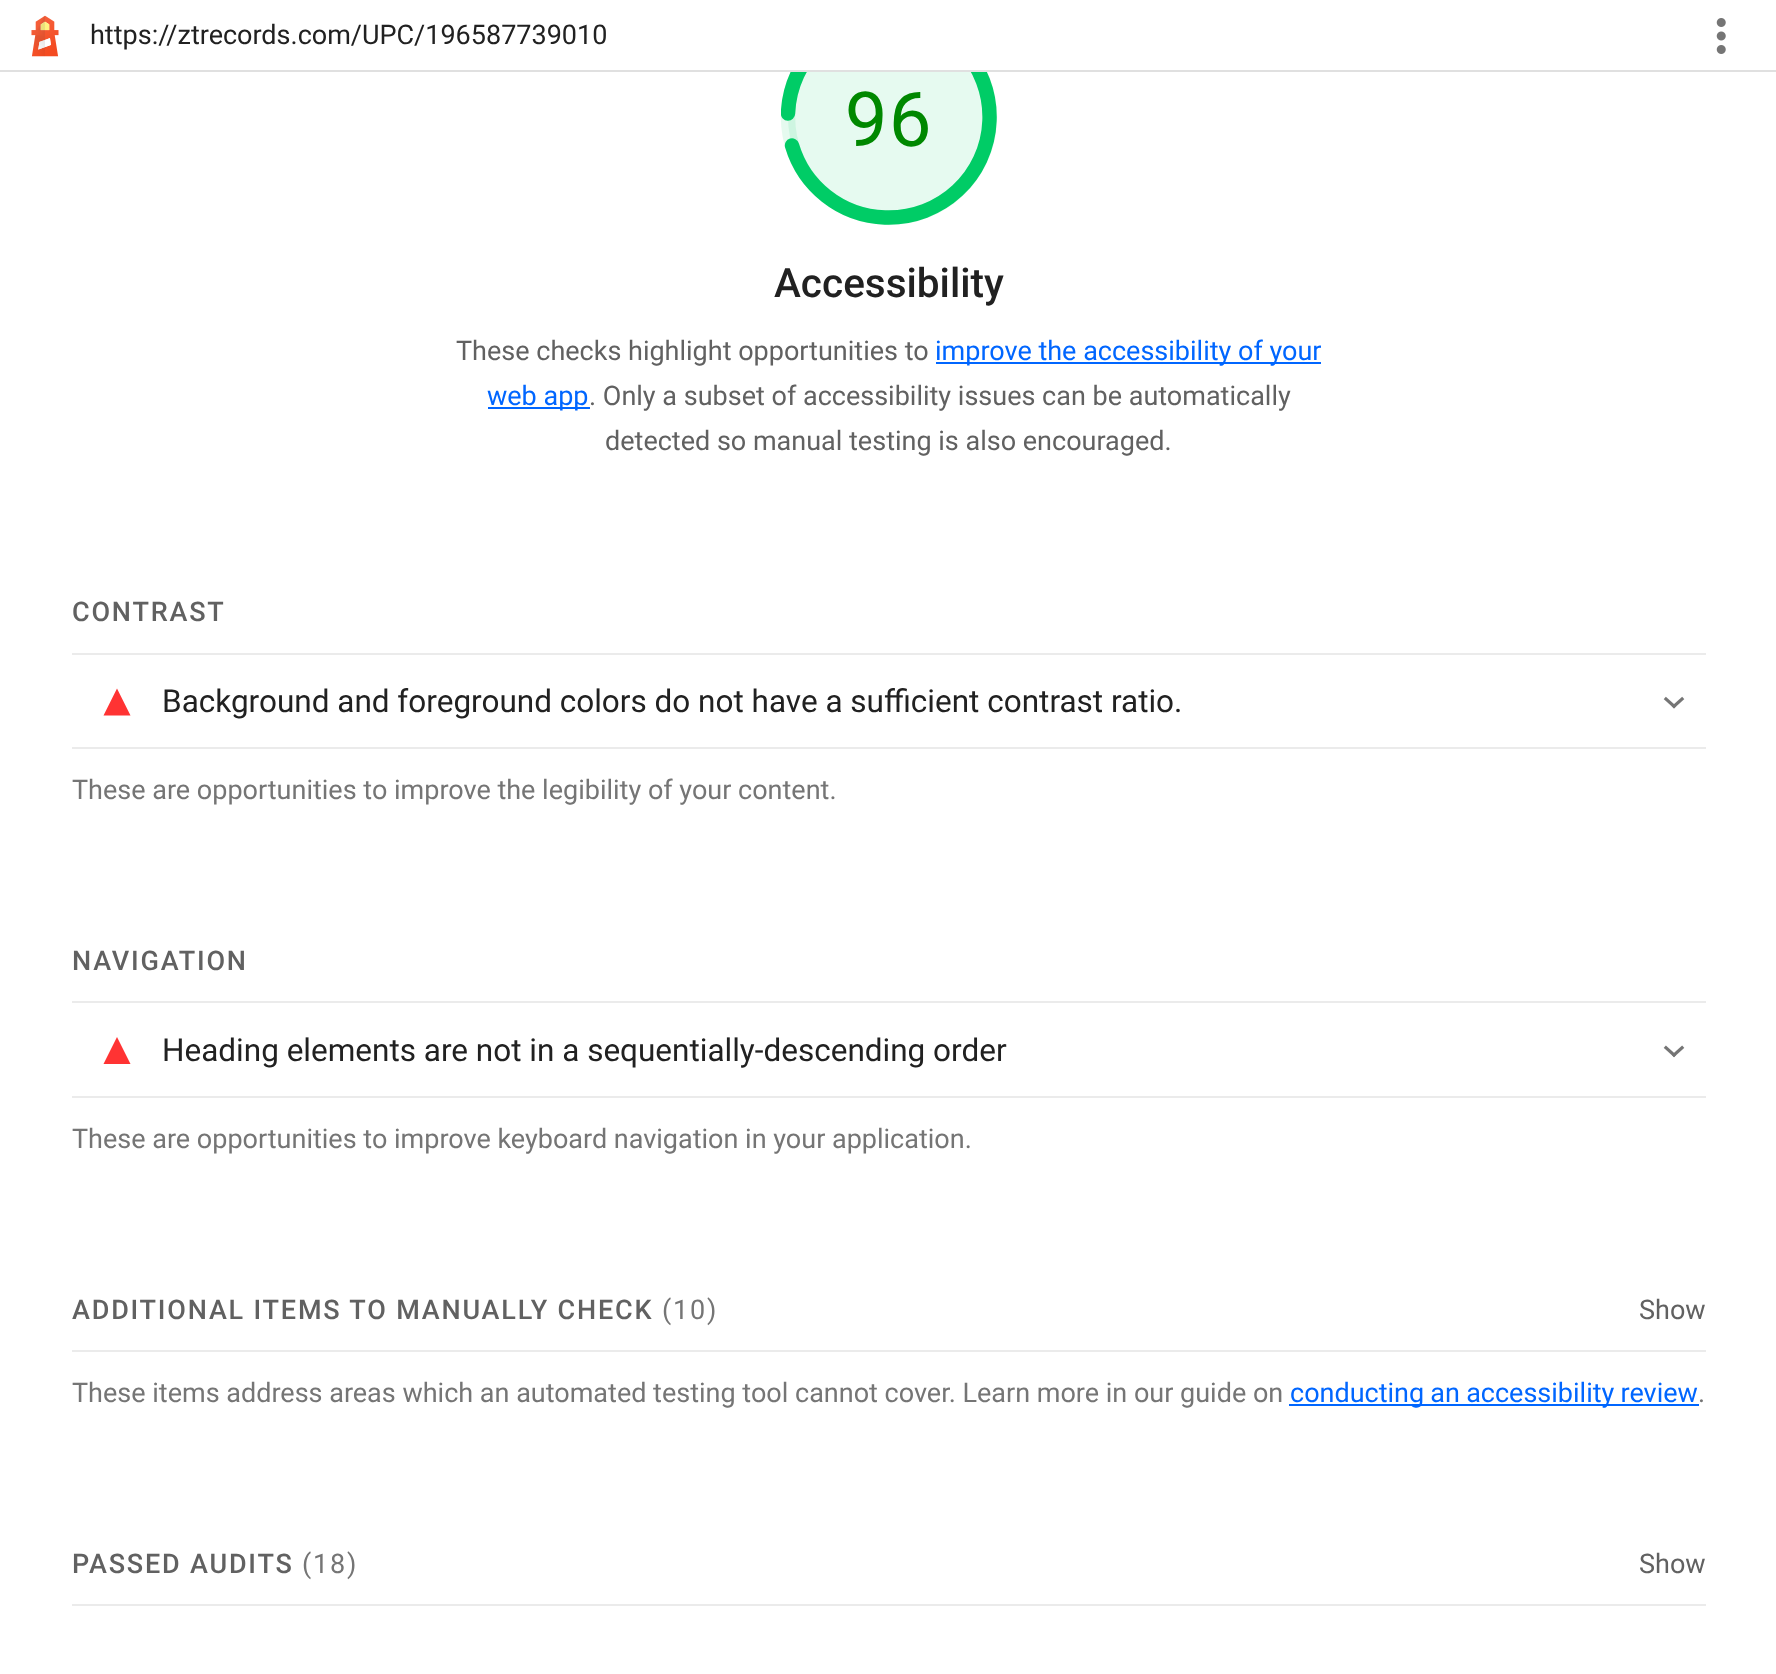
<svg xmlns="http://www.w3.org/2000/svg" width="1776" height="1674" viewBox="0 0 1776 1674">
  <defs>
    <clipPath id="clip1"><rect x="781" y="9" width="216" height="216"/></clipPath>
  </defs>
  <rect width="100%" height="100%" fill="rgb(255,255,255)"/>
  <circle cx="889" cy="117" r="101" fill="rgb(230,250,240)" stroke="rgba(0,204,102,0.1)" stroke-width="14.4"/>
  <g clip-path="url(#clip1)">
    <path d="M788 113.5C790 58 836.5 14.5 892.5 16.5C948 18.5 991.5 65 989.5 120.5C987.5 176 941 219.5 885 217.5C840.5 216 804 186 792 145.5" fill="none" stroke="rgb(0,204,102)" stroke-width="14.4" stroke-linecap="round"/>
  </g>
  <rect x="791" y="8" width="196" height="62" fill="rgb(255,255,255)"/>
  <rect x="0" y="70" width="1776" height="2" fill="rgb(224,224,224)"/>
  <image x="31" y="15" width="28" height="42" href="pic1.png"/>
  <text x="90" y="44" font-family="Roboto" font-size="27" fill="rgb(33,33,33)">https://ztrecords.com/UPC/196587739010</text>
  <image x="1716" y="18" width="10" height="36" href="pic2.png"/>
  <text x="843" y="146" font-family="Roboto Mono" font-size="76" fill="rgb(0,136,0)">96</text>
  <text x="774" y="297" font-family="Roboto" font-size="40.5" font-weight="500" fill="rgb(33,33,33)">Accessibility</text>
  <text x="456" y="360" font-family="Roboto" font-size="27" fill="rgb(97,97,97)">These checks highlight opportunities to</text>
  <rect x="936" y="362" width="385" height="2" fill="rgb(0,102,255)"/>
  <text x="935" y="360" font-family="Roboto" font-size="27" fill="rgb(0,102,255)">improve the accessibility of your</text>
  <rect x="488" y="407" width="102" height="2" fill="rgb(0,102,255)"/>
  <text x="487" y="405" font-family="Roboto" font-size="27" fill="rgb(0,102,255)">web app</text>
  <g font-family="Roboto" font-size="27" fill="rgb(97,97,97)">
    <text x="589" y="405">. Only a subset of accessibility issues can be automatically</text>
    <text x="605" y="450">detected so manual testing is also encouraged.</text>
  </g>
  <text x="72" y="621" font-family="Roboto" font-size="27" font-weight="500" letter-spacing="1.8" fill="rgb(97,97,97)">CONTRAST</text>
  <rect x="72" y="653" width="1634" height="2" fill="rgb(235,235,235)"/>
  <rect x="72" y="747" width="1634" height="2" fill="rgb(235,235,235)"/>
  <path d="M130.5 715.5H103.5L117 688.5Z" fill="rgb(255,51,51)"/>
  <text x="162" y="712" font-family="Roboto" font-size="31.5" fill="rgb(33,33,33)">Background and foreground colors do not have a sufficient contrast ratio.</text>
  <image x="1663" y="696" width="22" height="13" href="pic3.png"/>
  <text x="72" y="799" font-family="Roboto" font-size="27" fill="rgb(117,117,117)">These are opportunities to improve the legibility of your content.</text>
  <text x="72" y="970" font-family="Roboto" font-size="27" font-weight="500" letter-spacing="1.8" fill="rgb(97,97,97)">NAVIGATION</text>
  <rect x="72" y="1001" width="1634" height="2" fill="rgb(235,235,235)"/>
  <rect x="72" y="1096" width="1634" height="2" fill="rgb(235,235,235)"/>
  <path d="M130.5 1064H103.5L117 1037Z" fill="rgb(255,51,51)"/>
  <text x="162" y="1061" font-family="Roboto" font-size="31.5" fill="rgb(33,33,33)">Heading elements are not in a sequentially-descending order</text>
  <image x="1663" y="1045" width="22" height="13" href="pic4.png"/>
  <text x="72" y="1148" font-family="Roboto" font-size="27" fill="rgb(117,117,117)">These are opportunities to improve keyboard navigation in your application.</text>
  <rect x="72" y="1350" width="1634" height="2" fill="rgb(235,235,235)"/>
  <text x="72" y="1319" font-family="Roboto" font-size="27" font-weight="500" letter-spacing="1.8" fill="rgb(97,97,97)">ADDITIONAL ITEMS TO MANUALLY CHECK</text>
  <text x="662" y="1319" font-family="Roboto" font-size="27" letter-spacing="1.8" fill="rgb(117,117,117)">(10)</text>
  <text x="1639" y="1319" font-family="Roboto" font-size="27" fill="rgb(97,97,97)">Show</text>
  <text x="72" y="1402" font-family="Roboto" font-size="27" fill="rgb(117,117,117)">These items address areas which an automated testing tool cannot cover. Learn more in our guide on</text>
  <rect x="1289" y="1404" width="410" height="2" fill="rgb(0,102,255)"/>
  <text x="1290" y="1402" word-spacing="-0.5" font-family="Roboto" font-size="27" fill="rgb(0,102,255)">conducting an accessibility review</text>
  <text x="1698" y="1402" font-family="Roboto" font-size="27" fill="rgb(117,117,117)">.</text>
  <rect x="72" y="1604" width="1634" height="2" fill="rgb(235,235,235)"/>
  <text x="72" y="1573" font-family="Roboto" font-size="27" font-weight="500" letter-spacing="1.8" fill="rgb(97,97,97)">PASSED AUDITS</text>
  <text x="302" y="1573" font-family="Roboto" font-size="27" letter-spacing="1.8" fill="rgb(117,117,117)">(18)</text>
  <text x="1639" y="1573" font-family="Roboto" font-size="27" fill="rgb(97,97,97)">Show</text>
</svg>
